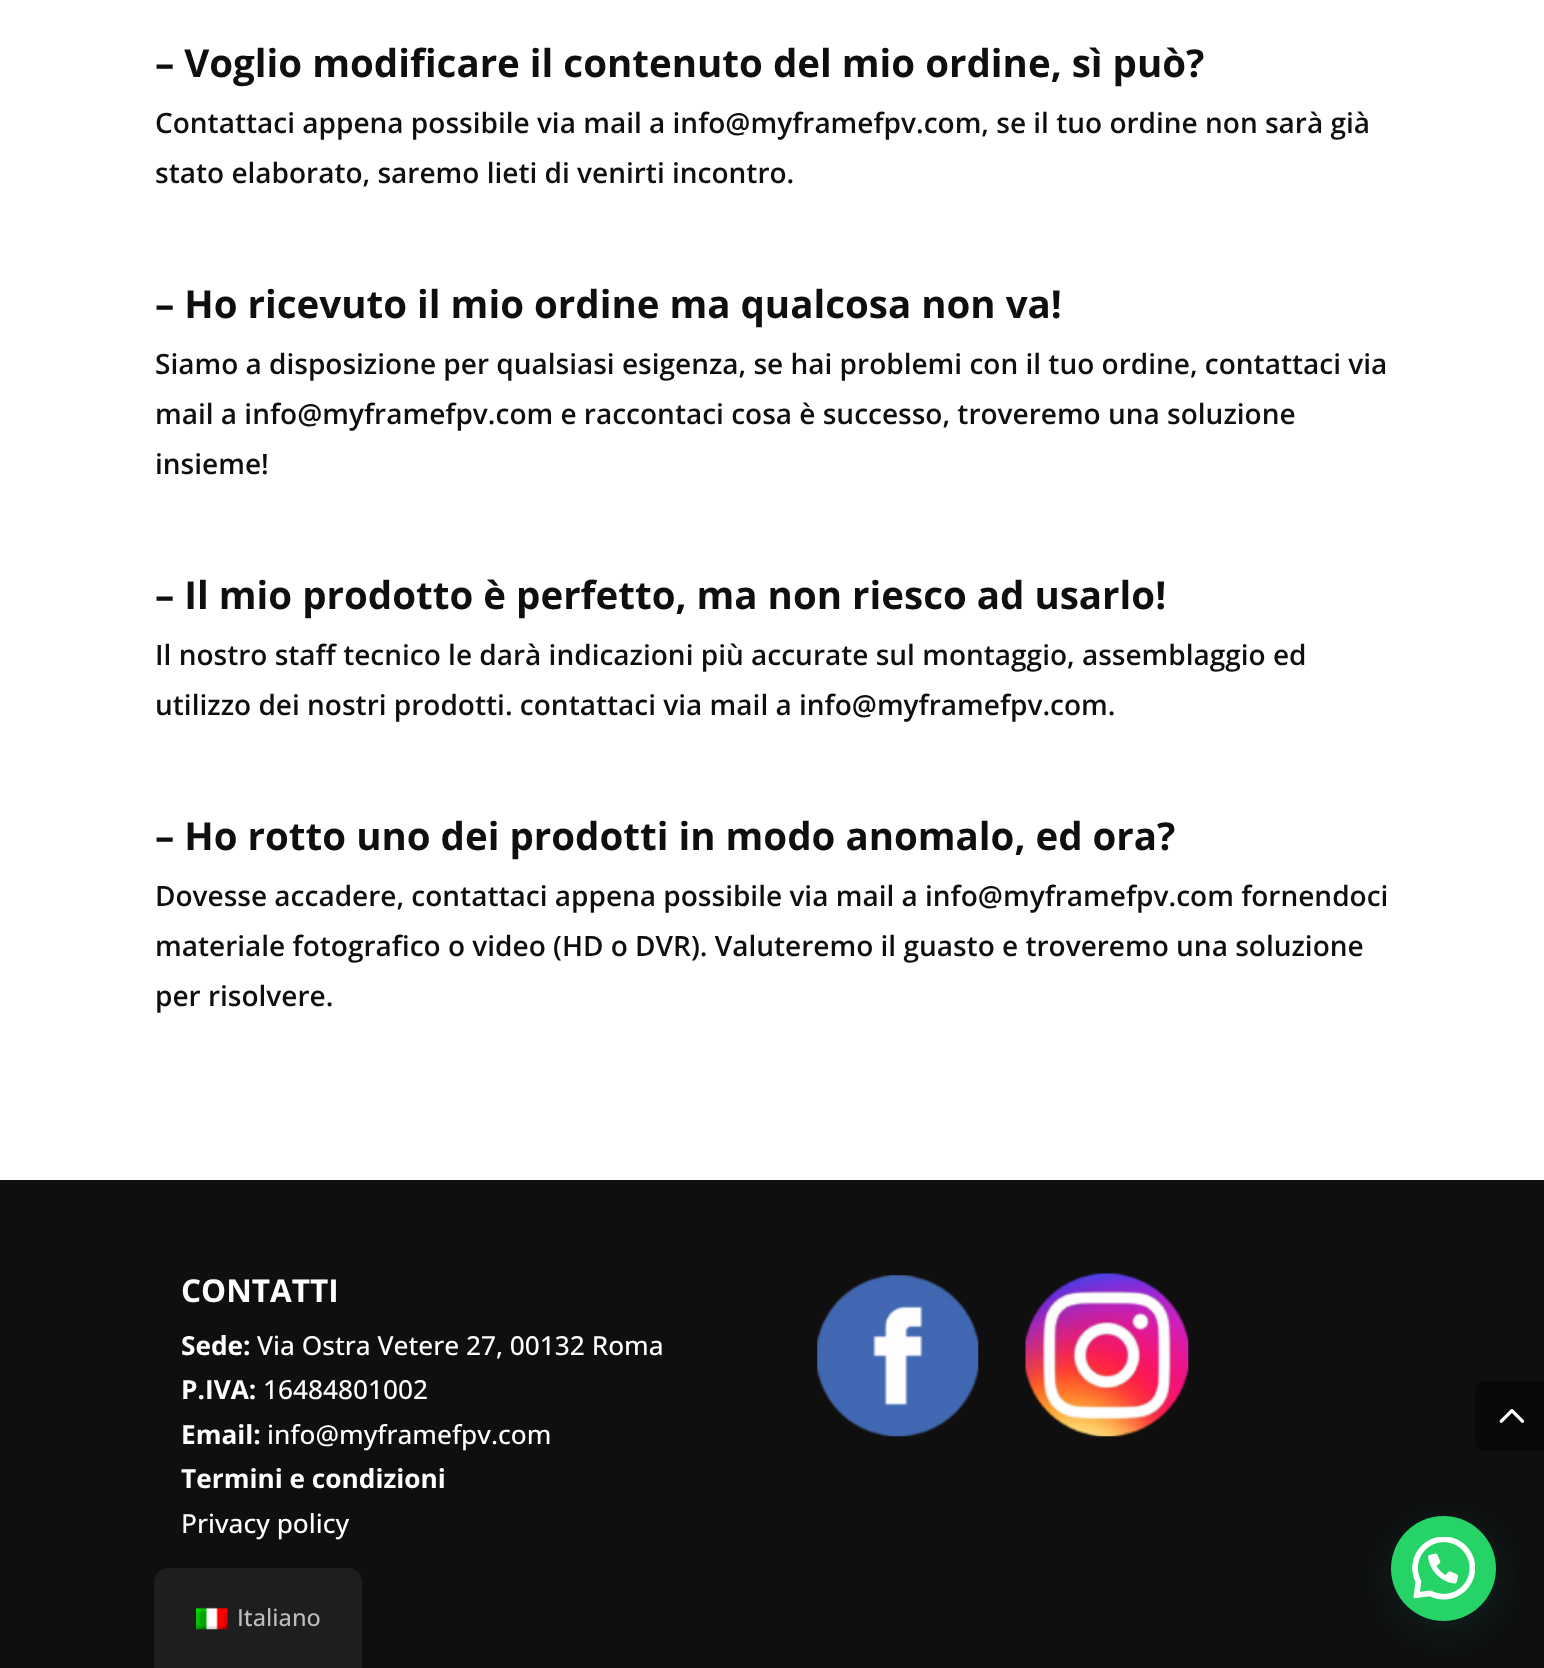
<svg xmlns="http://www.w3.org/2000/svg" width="1544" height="1668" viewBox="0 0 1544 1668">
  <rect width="100%" height="100%" fill="rgb(255,255,255)"/>
  <text x="155" y="77" font-family="Open Sans" font-size="38.5" font-weight="bold" fill="rgb(15,15,15)">– Voglio modificare il contenuto del mio ordine, sì può?</text>
  <g font-family="Open Sans" font-size="28" font-weight="600" fill="rgb(15,15,15)">
    <text>
      <tspan x="155" y="133">Contattaci appena possibile via mail a info@myframefpv.com, se il tuo ordine non sarà già</tspan>
      <tspan x="155" y="183">stato elaborato, saremo lieti di venirti incontro.</tspan>
    </text>
  </g>
  <text x="155" y="318" font-family="Open Sans" font-size="38.5" font-weight="bold" fill="rgb(15,15,15)">– Ho ricevuto il mio ordine ma qualcosa non va!</text>
  <g font-family="Open Sans" font-size="28" font-weight="600" fill="rgb(15,15,15)">
    <text>
      <tspan x="155" y="374">Siamo a disposizione per qualsiasi esigenza, se hai problemi con il tuo ordine, contattaci via</tspan>
      <tspan x="155" y="424">mail a info@myframefpv.com e raccontaci cosa è successo, troveremo una soluzione</tspan>
      <tspan x="155" y="474">insieme!</tspan>
    </text>
  </g>
  <text x="155" y="609" font-family="Open Sans" font-size="38.5" font-weight="bold" fill="rgb(15,15,15)">– Il mio prodotto è perfetto, ma non riesco ad usarlo!</text>
  <g font-family="Open Sans" font-size="28" font-weight="600" fill="rgb(15,15,15)">
    <text>
      <tspan x="155" y="665">Il nostro staff tecnico le darà indicazioni più accurate sul montaggio, assemblaggio ed</tspan>
      <tspan x="155" y="715">utilizzo dei nostri prodotti. contattaci via mail a info@myframefpv.com.</tspan>
    </text>
  </g>
  <text x="155" y="850" font-family="Open Sans" font-size="38.5" font-weight="bold" fill="rgb(15,15,15)">– Ho rotto uno dei prodotti in modo anomalo, ed ora?</text>
  <g font-family="Open Sans" font-size="28" font-weight="600" fill="rgb(15,15,15)">
    <text>
      <tspan x="155" y="906">Dovesse accadere, contattaci appena possibile via mail a info@myframefpv.com fornendoci</tspan>
      <tspan x="155" y="956">materiale fotografico o video (HD o DVR). Valuteremo il guasto e troveremo una soluzione</tspan>
      <tspan x="155" y="1006">per risolvere.</tspan>
    </text>
  </g>
  <rect x="0" y="1180" width="1544" height="488" fill="rgb(15,15,15)"/>
  <text x="181" y="1302" font-family="Open Sans" font-size="31.5" font-weight="bold" fill="rgb(255,255,255)">CONTATTI</text>
  <text x="181" y="1355" font-family="Open Sans" font-size="26.25" font-weight="bold" fill="rgb(255,255,255)">Sede:</text>
  <text x="257" y="1355" font-family="Open Sans" font-size="26.25" font-weight="500" fill="rgb(255,255,255)">Via Ostra Vetere 27, 00132 Roma</text>
  <text x="181" y="1399" font-family="Open Sans" font-size="26.25" font-weight="bold" fill="rgb(255,255,255)">P.IVA:</text>
  <text x="263" y="1399" font-family="Open Sans" font-size="26.25" font-weight="500" fill="rgb(255,255,255)">16484801002</text>
  <text x="181" y="1444" font-family="Open Sans" font-size="26.25" font-weight="bold" fill="rgb(255,255,255)">Email:</text>
  <text x="267" y="1444" font-family="Open Sans" font-size="26.25" font-weight="500" fill="rgb(255,255,255)">info@myframefpv.com</text>
  <text x="181" y="1488" font-family="Open Sans" font-size="26.25" font-weight="bold" fill="rgb(255,255,255)">Termini e condizioni</text>
  <text x="181" y="1533" font-family="Open Sans" font-size="26.25" font-weight="500" fill="rgb(255,255,255)">Privacy policy</text>
  <image x="817" y="1275" width="162" height="162" href="pic1.png"/>
  <image x="1025" y="1273" width="164" height="164" href="pic2.png"/>
  <path d="M1484 1381H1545V1451H1484C1479 1451 1475 1447 1475 1442V1390C1475 1385 1479 1381 1484 1381Z" fill="rgb(9,9,9)"/>
  <image x="1499" y="1409" width="26" height="14" href="pic3.png"/>
  <path d="M168 1568H348C355.5 1568 362 1574.5 362 1582V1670H154V1582C154 1574.5 160.5 1568 168 1568Z" fill="rgb(30,30,30)"/>
  <image x="196" y="1607" width="32" height="23" href="pic4.png"/>
  <text x="237" y="1626" font-family="Open Sans" font-size="23.5" font-weight="500" fill="rgb(189,189,189)">Italiano</text>
  <rect x="1393" y="1526" width="105" height="105" rx="52.5" fill="rgba(7,94,84,0.24)" filter="blur(21px)"/>
  <circle cx="1443.5" cy="1568.5" r="52.5" fill="rgb(37,211,102)"/>
  <image x="1412" y="1537" width="63" height="63" href="pic5.png"/>
</svg>
